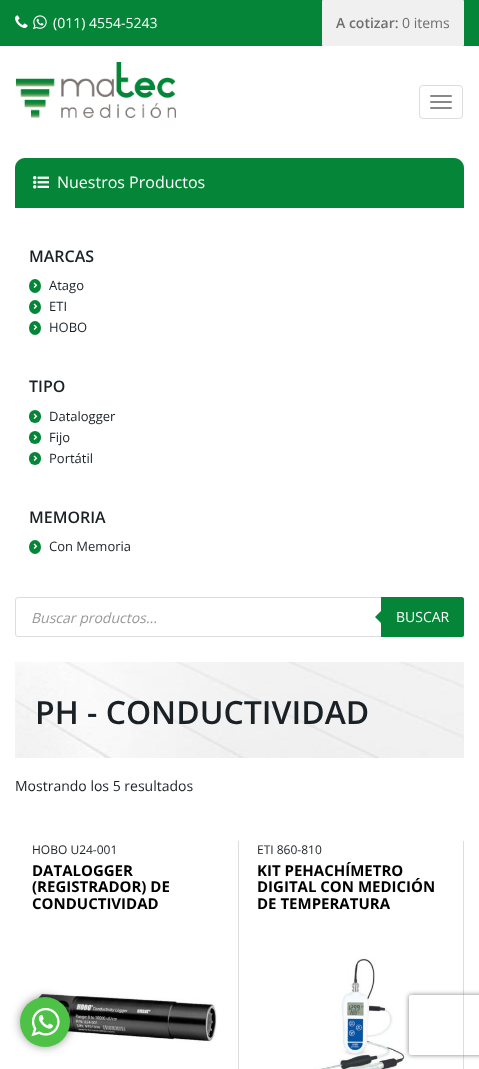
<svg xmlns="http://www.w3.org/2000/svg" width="479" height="1069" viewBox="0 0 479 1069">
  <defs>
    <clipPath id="clip1"><path d="M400 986H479V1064H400ZM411 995H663C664 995 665 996 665 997V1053C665 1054 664 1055 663 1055H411C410 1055 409 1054 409 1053V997C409 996 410 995 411 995Z" clip-rule="evenodd"/></clipPath>
  </defs>
  <rect width="100%" height="100%" fill="rgb(255,255,255)"/>
  <rect x="0" y="0" width="479" height="46" fill="rgb(5,133,55)"/>
  <image x="15" y="15" width="13" height="13" href="pic1.png"/>
  <image x="33" y="15" width="14" height="15" href="pic2.png"/>
  <text x="53" y="28" font-family="Open Sans" font-size="14" fill="rgb(255,255,255)">(011) 4554-5243</text>
  <rect x="322" y="0" width="142" height="46" rx="1" fill="rgb(240,240,240)"/>
  <text x="336" y="28" font-family="Open Sans" font-size="14" font-weight="600" fill="rgb(111,111,111)">A cotizar:</text>
  <text x="402" y="28" font-family="Open Sans" font-size="14" fill="rgb(111,111,111)">0 items</text>
  <image x="16" y="62" width="160" height="56" href="pic3.png"/>
  <rect x="419.5" y="85.5" width="43" height="33" rx="3.5" fill="none" stroke="rgb(221,221,221)"/>
  <rect x="430" y="95" width="22" height="2" rx="1" fill="rgb(136,136,136)"/>
  <rect x="430" y="101" width="22" height="2" rx="1" fill="rgb(136,136,136)"/>
  <rect x="430" y="107" width="22" height="2" rx="1" fill="rgb(136,136,136)"/>
  <path d="M25 158H454C459.5 158 464 162.5 464 168V208H15V168C15 162.5 19.5 158 25 158Z" fill="rgb(5,133,55)"/>
  <image x="33" y="176" width="16" height="13" href="pic4.png"/>
  <text x="57" y="188" font-family="Open Sans" font-size="16" fill="rgb(255,255,255)">Nuestros Productos</text>
  <text x="29" y="262" font-family="Open Sans" font-size="16" font-weight="600" fill="rgb(26,33,38)">MARCAS</text>
  <ellipse cx="35" cy="286" rx="6" ry="7" fill="rgb(5,133,55)"/>
  <image x="33" y="282" width="5" height="6" href="pic5.png"/>
  <text x="49" y="290" font-family="Open Sans" font-size="13" fill="rgb(26,33,38)">Atago</text>
  <ellipse cx="35" cy="307" rx="6" ry="7" fill="rgb(5,133,55)"/>
  <image x="33" y="303" width="5" height="6" href="pic5.png"/>
  <text x="49" y="311" font-family="Open Sans" font-size="13" fill="rgb(26,33,38)">ETI</text>
  <ellipse cx="35" cy="328" rx="6" ry="7" fill="rgb(5,133,55)"/>
  <image x="33" y="324" width="5" height="6" href="pic5.png"/>
  <text x="49" y="332" font-family="Open Sans" font-size="13" fill="rgb(26,33,38)">HOBO</text>
  <text x="29" y="392" font-family="Open Sans" font-size="16" font-weight="600" fill="rgb(26,33,38)">TIPO</text>
  <rect x="29" y="410" width="12" height="13" rx="6" fill="rgb(5,133,55)"/>
  <image x="33" y="413" width="5" height="6" href="pic5.png"/>
  <text x="49" y="421" font-family="Open Sans" font-size="13" fill="rgb(26,33,38)">Datalogger</text>
  <rect x="29" y="431" width="12" height="13" rx="6" fill="rgb(5,133,55)"/>
  <image x="33" y="434" width="5" height="6" href="pic5.png"/>
  <text x="49" y="442" font-family="Open Sans" font-size="13" fill="rgb(26,33,38)">Fijo</text>
  <rect x="29" y="452" width="12" height="13" rx="6" fill="rgb(5,133,55)"/>
  <image x="33" y="455" width="5" height="6" href="pic5.png"/>
  <text x="49" y="463" font-family="Open Sans" font-size="13" fill="rgb(26,33,38)">Portátil</text>
  <text x="29" y="523" font-family="Open Sans" font-size="16" font-weight="600" fill="rgb(26,33,38)">MEMORIA</text>
  <ellipse cx="35" cy="547" rx="6" ry="7" fill="rgb(5,133,55)"/>
  <image x="33" y="543" width="5" height="6" href="pic5.png"/>
  <text x="49" y="551" font-family="Open Sans" font-size="13" fill="rgb(26,33,38)">Con Memoria</text>
  <rect x="15.5" y="597.5" width="448" height="39" rx="2.5" fill="none" stroke="rgb(221,221,221)"/>
  <text x="31" y="623" font-family="Open Sans" font-size="14" font-style="italic" fill="rgb(153,153,153)">Buscar productos...</text>
  <path d="M381 597H462C463 597 464 598 464 599V635C464 636 463 637 462 637H381Z" fill="rgb(5,133,55)"/>
  <path d="M383 609V625L375 617Z" fill="rgb(5,133,55)"/>
  <text x="396" y="622" font-family="Open Sans" font-size="14" fill="rgb(255,255,255)">BUSCAR</text>
  <image x="15" y="662" width="449" height="96" href="pic6.png"/>
  <text x="35" y="724" font-family="Open Sans" font-size="32" font-weight="600" fill="rgb(26,33,38)">PH - CONDUCTIVIDAD</text>
  <text x="15" y="791" font-family="Open Sans" font-size="14" fill="rgb(26,33,38)">Mostrando los 5 resultados</text>
  <rect x="238" y="841" width="1" height="228" fill="rgb(221,221,221)"/>
  <text x="32" y="854" font-family="Open Sans" font-size="12" fill="rgb(26,33,38)">HOBO U24-001</text>
  <g font-family="Open Sans" font-size="15" font-weight="bold" fill="rgb(0,0,0)">
    <text>
      <tspan x="32" y="876">DATALOGGER</tspan>
      <tspan x="32" y="892">(REGISTRADOR) DE</tspan>
      <tspan x="32" y="909">CONDUCTIVIDAD</tspan>
    </text>
  </g>
  <image x="32" y="993" width="185" height="51" href="pic7.png"/>
  <rect x="463" y="841" width="1" height="228" fill="rgb(221,221,221)"/>
  <text x="257" y="854" font-family="Open Sans" font-size="12" fill="rgb(26,33,38)">ETI 860-810</text>
  <g font-family="Open Sans" font-size="15" font-weight="bold" fill="rgb(0,0,0)">
    <text>
      <tspan x="257" y="876">KIT PEHACHÍMETRO</tspan>
      <tspan x="257" y="892">DIGITAL CON MEDICIÓN</tspan>
      <tspan x="257" y="909">DE TEMPERATURA</tspan>
    </text>
  </g>
  <image x="314" y="958" width="93" height="111" href="pic8.png"/>
  <rect x="20" y="997" width="50" height="50" rx="25" fill="rgba(0,0,0,0.4)" filter="blur(5px)"/>
  <circle cx="45" cy="1022" r="25" fill="rgb(77,194,71)"/>
  <image x="31" y="1007" width="29" height="30" href="pic9.png"/>
  <g clip-path="url(#clip1)">
    <rect x="409" y="995" width="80" height="60" rx="2" fill="rgb(128,128,128)" filter="blur(2.5px)"/>
  </g>
</svg>
